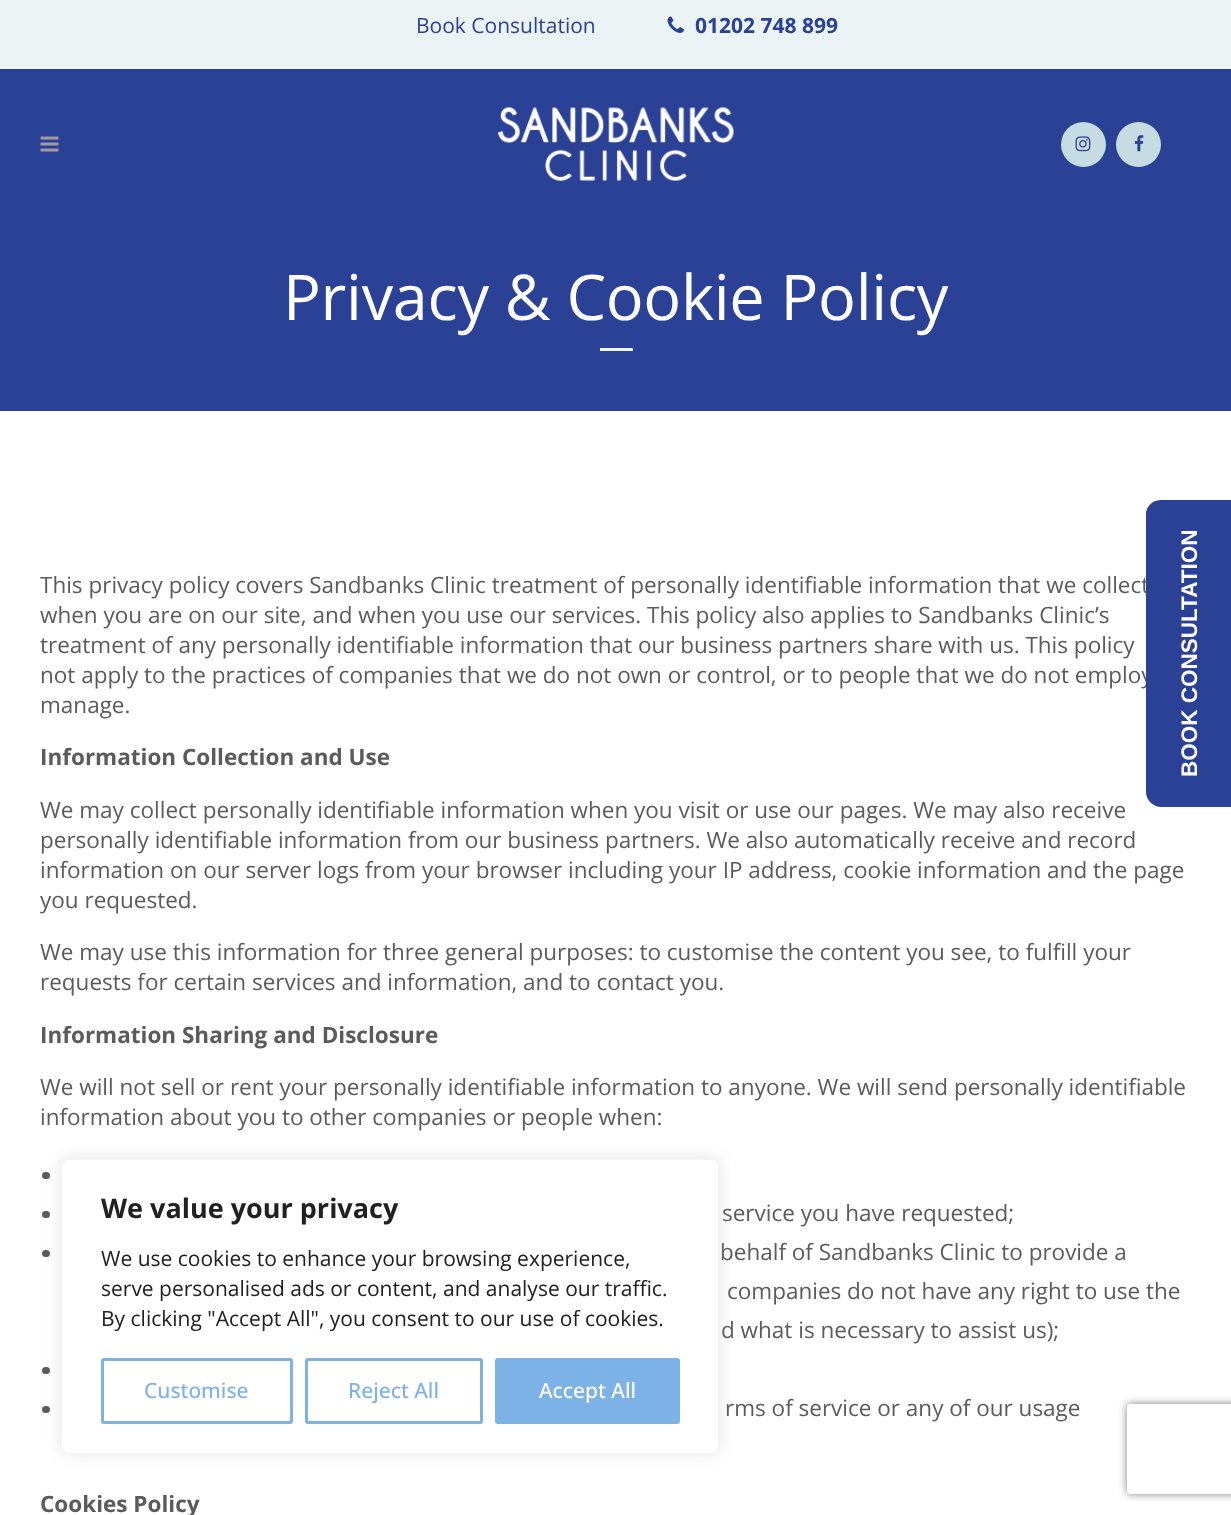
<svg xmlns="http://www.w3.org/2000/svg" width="1231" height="1515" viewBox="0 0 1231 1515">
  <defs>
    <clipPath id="clip1"><path d="M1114 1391H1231V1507H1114ZM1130 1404H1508C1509.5 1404 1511 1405.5 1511 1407V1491C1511 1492.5 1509.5 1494 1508 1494H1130C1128.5 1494 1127 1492.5 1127 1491V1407C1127 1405.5 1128.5 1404 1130 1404Z" clip-rule="evenodd"/></clipPath>
  </defs>
  <rect width="100%" height="100%" fill="rgb(255,255,255)"/>
  <rect x="0" y="0" width="1231" height="69" fill="rgb(236,243,245)"/>
  <text x="416" y="33" font-family="Open Sans" font-size="21" fill="rgb(43,65,150)">Book Consultation</text>
  <image x="667" y="16" width="17" height="17" href="pic1.png"/>
  <text x="695" y="33" font-family="Open Sans" font-size="21" font-weight="bold" fill="rgb(43,65,150)">01202 748 899</text>
  <rect x="0" y="69" width="1231" height="342" fill="rgb(43,65,150)"/>
  <image x="40" y="136" width="19" height="16" href="pic2.png"/>
  <image x="498" y="107" width="236" height="74" href="pic3.png"/>
  <circle cx="1083.5" cy="144.5" r="22.5" fill="rgb(197,220,227)"/>
  <image x="1075" y="136" width="16" height="16" href="pic4.png"/>
  <circle cx="1138.5" cy="144.5" r="22.5" fill="rgb(197,220,227)"/>
  <image x="1134" y="135" width="10" height="17" href="pic5.png"/>
  <text x="283" y="320" font-family="Open Sans" font-size="63" letter-spacing="-0.3" fill="rgb(255,255,255)">Privacy &amp; Cookie Policy</text>
  <rect x="600" y="348" width="33" height="3" fill="rgb(236,245,247)"/>
  <g font-family="Open Sans" font-size="22.5" fill="rgb(91,91,91)">
    <text>
      <tspan x="40" y="593">This privacy policy covers Sandbanks Clinic treatment of personally identifiable information that we collect</tspan>
      <tspan x="40" y="623">when you are on our site, and when you use our services. This policy also applies to Sandbanks Clinic’s</tspan>
      <tspan x="40" y="653">treatment of any personally identifiable information that our business partners share with us. This policy</tspan>
      <tspan x="40" y="683">not apply to the practices of companies that we do not own or control, or to people that we do not employ</tspan>
      <tspan x="40" y="713">manage.</tspan>
    </text>
  </g>
  <text x="40" y="765" font-family="Open Sans" font-size="22.5" font-weight="bold" fill="rgb(91,91,91)">Information Collection and Use</text>
  <g font-family="Open Sans" font-size="22.5" fill="rgb(91,91,91)">
    <text>
      <tspan x="40" y="818">We may collect personally identifiable information when you visit or use our pages. We may also receive</tspan>
      <tspan x="40" y="848">personally identifiable information from our business partners. We also automatically receive and record</tspan>
      <tspan x="40" y="878">information on our server logs from your browser including your IP address, cookie information and the page</tspan>
      <tspan x="40" y="908">you requested.</tspan>
    </text>
    <text>
      <tspan x="40" y="960">We may use this information for three general purposes: to customise the content you see, to fulfill your</tspan>
      <tspan x="40" y="990">requests for certain services and information, and to contact you.</tspan>
    </text>
  </g>
  <text x="40" y="1043" font-family="Open Sans" font-size="22.5" font-weight="bold" fill="rgb(91,91,91)">Information Sharing and Disclosure</text>
  <g font-family="Open Sans" font-size="22.5" fill="rgb(91,91,91)">
    <text>
      <tspan x="40" y="1095">We will not sell or rent your personally identifiable information to anyone. We will send personally identifiable</tspan>
      <tspan x="40" y="1125">information about you to other companies or people when:</tspan>
    </text>
  </g>
  <rect x="42" y="1172" width="8" height="7" rx="3.5" fill="rgb(91,91,91)"/>
  <rect x="42" y="1211" width="8" height="7" rx="3.5" fill="rgb(91,91,91)"/>
  <text x="722" y="1221" font-family="Open Sans" font-size="22.5" fill="rgb(91,91,91)">service you have requested;</text>
  <rect x="42" y="1250" width="8" height="7" rx="3.5" fill="rgb(91,91,91)"/>
  <g font-family="Open Sans" font-size="22.5" fill="rgb(91,91,91)">
    <text x="720" y="1260">behalf of Sandbanks Clinic to provide a</text>
    <text x="727" y="1299">companies do not have any right to use the</text>
    <text x="721" y="1338">d what is necessary to assist us);</text>
  </g>
  <rect x="42" y="1367" width="8" height="7" rx="3.5" fill="rgb(91,91,91)"/>
  <rect x="42" y="1406" width="8" height="7" rx="3.5" fill="rgb(91,91,91)"/>
  <text x="725" y="1416" font-family="Open Sans" font-size="22.5" fill="rgb(91,91,91)">rms of service or any of our usage</text>
  <text x="40" y="1512" font-family="Open Sans" font-size="22.5" font-weight="bold" fill="rgb(91,91,91)">Cookies Policy</text>
  <path d="M1146 792V514C1146 506 1153 500 1161 500H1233V807H1161C1153 807 1146 800 1146 792Z" fill="rgb(43,65,150)"/>
  <text x="1197" y="777" transform="rotate(-90 1197 777)" font-family="Liberation Sans" font-size="22.5" font-weight="bold" fill="rgb(255,255,255)">BOOK CONSULTATION</text>
  <rect x="60" y="1157" width="660" height="297" rx="9" fill="rgba(172,171,171,0.3)" filter="blur(7.5px)"/>
  <rect x="61" y="1159" width="658" height="295" rx="8" fill="rgb(255,255,255)" stroke="rgb(244,244,244)" stroke-width="2"/>
  <text x="101" y="1218" font-family="Open Sans" font-size="27" font-weight="bold" fill="rgb(33,33,33)">We value your privacy</text>
  <g font-family="Open Sans" font-size="21" fill="rgb(33,33,33)">
    <text>
      <tspan x="101" y="1266">We use cookies to enhance your browsing experience,</tspan>
      <tspan x="101" y="1296">serve personalised ads or content, and analyse our traffic.</tspan>
      <tspan x="101" y="1326">By clicking "Accept All", you consent to our use of cookies.</tspan>
    </text>
  </g>
  <rect x="102.5" y="1359.5" width="189" height="63" rx="1.5" fill="none" stroke="rgb(125,178,230)" stroke-width="3"/>
  <text x="144" y="1398" font-family="Open Sans" font-size="21" font-weight="500" fill="rgb(125,178,230)">Customise</text>
  <rect x="306.5" y="1359.5" width="175" height="63" rx="1.5" fill="none" stroke="rgb(125,178,230)" stroke-width="3"/>
  <text x="348" y="1398" font-family="Open Sans" font-size="21" font-weight="500" fill="rgb(125,178,230)">Reject All</text>
  <rect x="496.5" y="1359.5" width="182" height="63" rx="1.5" fill="rgb(125,178,230)" stroke="rgb(125,178,230)" stroke-width="3"/>
  <text x="539" y="1398" font-family="Open Sans" font-size="21" font-weight="500" fill="rgb(255,255,255)">Accept All</text>
  <g clip-path="url(#clip1)">
    <rect x="1127" y="1404" width="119" height="90" rx="3" fill="rgb(128,128,128)" filter="blur(4px)"/>
  </g>
</svg>
